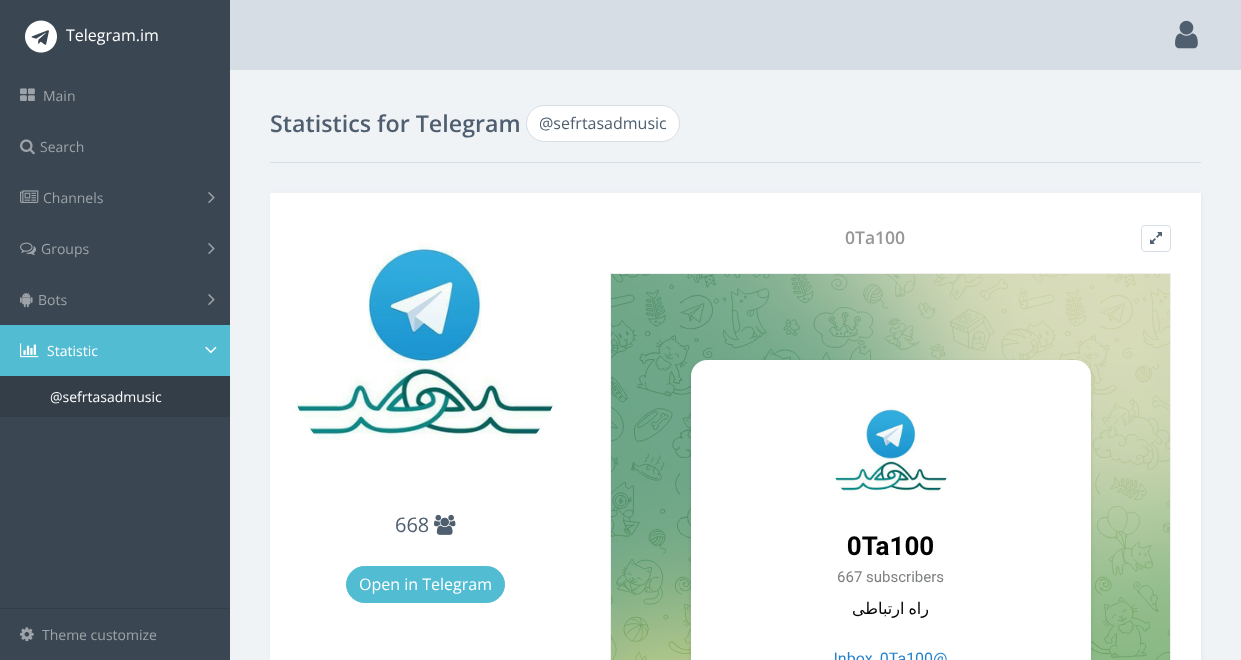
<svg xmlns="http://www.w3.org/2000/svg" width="1241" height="660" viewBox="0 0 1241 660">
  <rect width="100%" height="100%" fill="rgb(240,243,246)"/>
  <rect x="0" y="0" width="230" height="660" fill="rgb(58,70,81)"/>
  <image x="25" y="20" width="32" height="33" href="pic1.png"/>
  <text x="66" y="41" font-family="Open Sans" font-size="16" fill="rgb(255,255,255)">Telegram.im</text>
  <image x="20" y="88" width="15" height="13" href="pic2.png"/>
  <text x="43" y="101" font-family="Open Sans" font-size="14" fill="rgb(157,163,168)">Main</text>
  <image x="20" y="139" width="15" height="16" href="pic3.png"/>
  <text x="40" y="152" font-family="Open Sans" font-size="14" fill="rgb(157,163,168)">Search</text>
  <image x="20" y="190" width="19" height="13" href="pic4.png"/>
  <text x="43" y="203" font-family="Open Sans" font-size="14" fill="rgb(157,163,168)">Channels</text>
  <image x="208" y="192" width="7" height="11" href="pic5.png"/>
  <image x="20" y="242" width="16" height="14" href="pic6.png"/>
  <text x="41" y="254" font-family="Open Sans" font-size="14" fill="rgb(157,163,168)">Groups</text>
  <image x="208" y="243" width="7" height="11" href="pic5.png"/>
  <image x="20" y="292" width="13" height="16" href="pic7.png"/>
  <text x="38" y="305" font-family="Open Sans" font-size="14" fill="rgb(157,163,168)">Bots</text>
  <image x="208" y="294" width="7" height="11" href="pic5.png"/>
  <rect x="0" y="325" width="230" height="51" fill="rgb(82,188,211)"/>
  <image x="20" y="343" width="19" height="15" href="pic8.png"/>
  <text x="47" y="356" font-family="Open Sans" font-size="14" fill="rgb(255,255,255)">Statistic</text>
  <image x="205" y="346" width="12" height="8" href="pic9.png"/>
  <rect x="0" y="376" width="230" height="41" fill="rgb(51,62,72)"/>
  <text x="50" y="402" font-family="Open Sans" font-size="14" fill="rgb(255,255,255)">@sefrtasadmusic</text>
  <rect x="0" y="608" width="230" height="1" fill="rgb(52,62,72)"/>
  <image x="20" y="627" width="14" height="15" href="pic10.png"/>
  <text x="42" y="640" font-family="Open Sans" font-size="14" fill="rgb(157,163,168)">Theme customize</text>
  <rect x="230" y="0" width="1011" height="70" fill="rgb(215,221,228)"/>
  <image x="1175" y="20" width="23" height="29" href="pic11.png"/>
  <rect x="270" y="162" width="931" height="1" fill="rgb(215,221,228)"/>
  <text x="270" y="132" font-family="Open Sans" font-size="23.25" font-weight="600" fill="rgb(79,95,111)">Statistics for Telegram</text>
  <rect x="526.5" y="105.5" width="153" height="36" rx="18" fill="rgb(255,255,255)" stroke="rgb(215,221,228)"/>
  <text x="539" y="129" font-family="Open Sans" font-size="16" fill="rgb(79,95,111)">@sefrtasadmusic</text>
  <rect x="271" y="194" width="931" height="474" fill="rgba(126,142,159,0.1)" filter="blur(2.5px)"/>
  <rect x="270" y="193" width="931" height="467" fill="rgb(255,255,255)"/>
  <text x="845" y="244" font-family="Open Sans" font-size="17.5" font-weight="600" fill="rgb(150,150,150)">0Ta100</text>
  <rect x="1141.5" y="225.5" width="29" height="26" rx="3.5" fill="none" stroke="rgb(215,221,228)"/>
  <image x="1150" y="232" width="12" height="12" href="pic12.png"/>
  <rect x="610.5" y="273.5" width="560" height="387" fill="none" stroke="rgb(239,239,239)"/>
  <image x="611" y="274" width="559" height="386" href="pic13.png"/>
  <image x="296" y="243" width="258" height="198" href="pic14.png"/>
  <text x="395" y="532" font-family="Open Sans" font-size="20" fill="rgb(79,95,111)">668</text>
  <image x="434" y="514" width="22" height="21" href="pic15.png"/>
  <rect x="346.5" y="566.5" width="158" height="36" rx="18" fill="rgb(82,188,211)" stroke="rgb(82,188,211)"/>
  <text x="359" y="590" font-family="Open Sans" font-size="16" fill="rgb(255,255,255)">Open in Telegram</text>
</svg>
